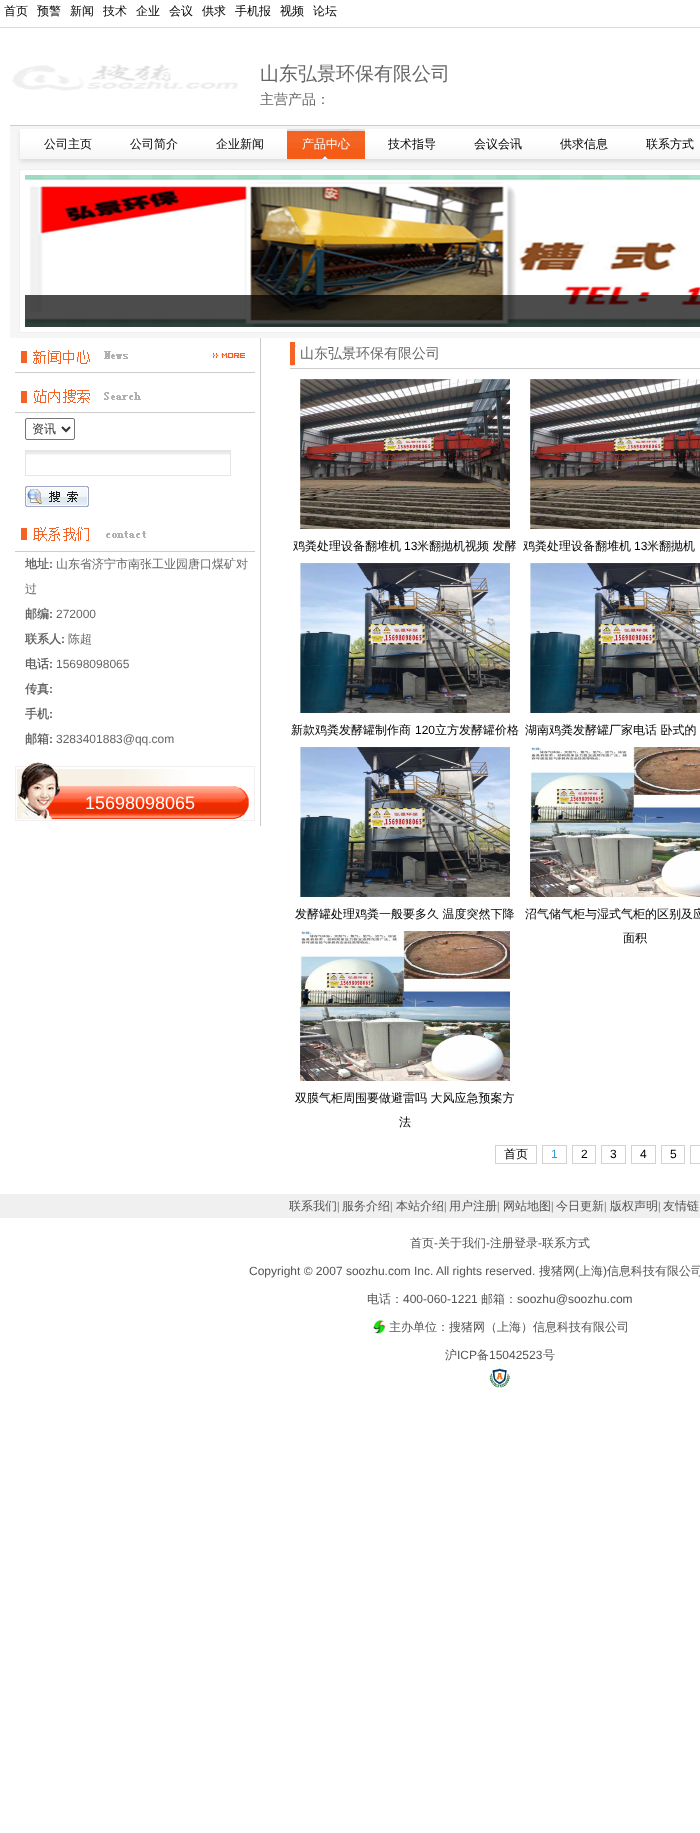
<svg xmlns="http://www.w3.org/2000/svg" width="700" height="1833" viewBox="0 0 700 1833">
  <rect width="100%" height="100%" fill="rgb(255,255,255)"/>
  <g font-family="WenQuanYi Zen Hei" font-size="12" font-weight="500" fill="rgb(0,0,0)">
    <text x="4" y="15">首页</text>
    <text x="37" y="15">预警</text>
    <text x="70" y="15">新闻</text>
    <text x="103" y="15">技术</text>
    <text x="136" y="15">企业</text>
    <text x="169" y="15">会议</text>
    <text x="202" y="15">供求</text>
    <text x="235" y="15">手机报</text>
    <text x="280" y="15">视频</text>
    <text x="313" y="15">论坛</text>
  </g>
  <rect x="0" y="27" width="700" height="1" fill="rgb(219,219,219)"/>
  <image x="12" y="64" width="226" height="27" href="pic1.png"/>
  <text x="260" y="80" font-family="WenQuanYi Zen Hei" font-size="19" font-weight="500" fill="rgb(102,102,102)">山东弘景环保有限公司</text>
  <text x="260" y="104" font-family="WenQuanYi Zen Hei" font-size="14" font-weight="500" fill="rgb(102,102,102)">主营产品：</text>
  <image x="10" y="126" width="690" height="38" href="pic2.png"/>
  <rect x="10" y="125" width="690" height="1" fill="rgb(204,204,204)"/>
  <g font-family="WenQuanYi Zen Hei" font-size="12" font-weight="500" fill="rgb(0,0,0)">
    <text x="44" y="148">公司主页</text>
    <text x="130" y="148">公司简介</text>
    <text x="216" y="148">企业新闻</text>
  </g>
  <image x="287" y="129" width="78" height="30" href="pic3.png"/>
  <text x="302" y="148" font-family="WenQuanYi Zen Hei" font-size="12" font-weight="500" fill="rgb(255,255,255)">产品中心</text>
  <g font-family="WenQuanYi Zen Hei" font-size="12" font-weight="500" fill="rgb(0,0,0)">
    <text x="388" y="148">技术指导</text>
    <text x="474" y="148">会议会讯</text>
    <text x="560" y="148">供求信息</text>
    <text x="646" y="148">联系方式</text>
  </g>
  <image x="10" y="164" width="690" height="174" href="pic4.png"/>
  <image x="25" y="175" width="675" height="152" href="pic5.png"/>
  <rect x="25" y="295" width="675" height="32" fill="rgba(0,0,0,0.7)"/>
  <rect x="260" y="338" width="1" height="488" fill="rgb(204,204,204)"/>
  <image x="21" y="350" width="107" height="14" href="pic6.png"/>
  <rect x="15" y="372" width="240" height="1" fill="rgb(204,204,204)"/>
  <image x="213" y="353" width="32" height="5" href="pic7.png"/>
  <image x="21" y="389" width="120" height="14" href="pic8.png"/>
  <rect x="15" y="412" width="240" height="1" fill="rgb(204,204,204)"/>
  <rect x="25.5" y="418.5" width="49" height="21" rx="1.5" fill="none" stroke="rgb(118,118,118)"/>
  <path d="M62 427L66 431L70 427" fill="none" stroke="rgb(51,51,51)" stroke-width="2"/>
  <text x="32" y="433" font-family="WenQuanYi Zen Hei" font-size="12" font-weight="500" fill="rgb(51,51,51)">资讯</text>
  <image x="26" y="451" width="204" height="4" href="pic9.png"/>
  <rect x="25.5" y="450.5" width="205" height="25" fill="none" stroke="rgb(230,230,230)"/>
  <image x="25" y="486" width="64" height="21" href="pic10.png"/>
  <image x="21" y="527" width="125" height="14" href="pic11.png"/>
  <rect x="15" y="551" width="240" height="1" fill="rgb(204,204,204)"/>
  <text x="25" y="568" font-family="WenQuanYi Zen Hei" font-size="12" font-weight="bold" fill="rgb(102,102,102)">地址</text>
  <text x="49" y="568" font-family="Liberation Sans" font-size="12" font-weight="bold" fill="rgb(102,102,102)">:</text>
  <g font-family="WenQuanYi Zen Hei" font-size="12" font-weight="500" fill="rgb(102,102,102)">
    <text x="56" y="568">山东省济宁市南张工业园唐口煤矿对</text>
    <text x="25" y="593">过</text>
  </g>
  <text x="25" y="618" font-family="WenQuanYi Zen Hei" font-size="12" font-weight="bold" fill="rgb(102,102,102)">邮编</text>
  <text x="49" y="618" font-family="Liberation Sans" font-size="12" font-weight="bold" fill="rgb(102,102,102)">:</text>
  <text x="56" y="618" font-family="Liberation Sans" font-size="12" fill="rgb(102,102,102)">272000</text>
  <text x="25" y="643" font-family="WenQuanYi Zen Hei" font-size="12" font-weight="bold" fill="rgb(102,102,102)">联系人</text>
  <text x="61" y="643" font-family="Liberation Sans" font-size="12" font-weight="bold" fill="rgb(102,102,102)">:</text>
  <text x="68" y="643" font-family="WenQuanYi Zen Hei" font-size="12" font-weight="500" fill="rgb(102,102,102)">陈超</text>
  <text x="25" y="668" font-family="WenQuanYi Zen Hei" font-size="12" font-weight="bold" fill="rgb(102,102,102)">电话</text>
  <text x="49" y="668" font-family="Liberation Sans" font-size="12" font-weight="bold" fill="rgb(102,102,102)">:</text>
  <text x="56" y="668" font-family="Liberation Sans" font-size="12" fill="rgb(102,102,102)">15698098065</text>
  <text x="25" y="693" font-family="WenQuanYi Zen Hei" font-size="12" font-weight="bold" fill="rgb(102,102,102)">传真</text>
  <text x="49" y="693" font-family="Liberation Sans" font-size="12" font-weight="bold" fill="rgb(102,102,102)">:</text>
  <text x="25" y="718" font-family="WenQuanYi Zen Hei" font-size="12" font-weight="bold" fill="rgb(102,102,102)">手机</text>
  <text x="49" y="718" font-family="Liberation Sans" font-size="12" font-weight="bold" fill="rgb(102,102,102)">:</text>
  <text x="25" y="743" font-family="WenQuanYi Zen Hei" font-size="12" font-weight="bold" fill="rgb(102,102,102)">邮箱</text>
  <text x="49" y="743" font-family="Liberation Sans" font-size="12" font-weight="bold" fill="rgb(102,102,102)">:</text>
  <text x="56" y="743" font-family="Liberation Sans" font-size="12" fill="rgb(102,102,102)">3283401883@qq.com</text>
  <image x="15" y="762" width="240" height="59" href="pic12.png"/>
  <text x="85" y="809" font-family="Liberation Sans" font-size="18" fill="rgb(255,255,255)">15698098065</text>
  <image x="290" y="342" width="6" height="24" href="pic13.png"/>
  <rect x="290" y="368" width="410" height="1" fill="rgb(204,204,204)"/>
  <text x="300" y="358" font-family="WenQuanYi Zen Hei" font-size="14" font-weight="500" fill="rgb(102,102,102)">山东弘景环保有限公司</text>
  <image x="300" y="379" width="210" height="150" href="pic14.png"/>
  <text x="293" y="550" font-family="WenQuanYi Zen Hei" font-size="12" font-weight="500" fill="rgb(0,0,0)">鸡粪处理设备翻堆机</text>
  <text x="404" y="550" font-family="Liberation Sans" font-size="12" fill="rgb(0,0,0)">13</text>
  <text x="417" y="550" font-family="WenQuanYi Zen Hei" font-size="12" font-weight="500" fill="rgb(0,0,0)">米翻抛机视频 发酵</text>
  <image x="530" y="379" width="170" height="150" href="pic15.png"/>
  <text x="523" y="550" font-family="WenQuanYi Zen Hei" font-size="12" font-weight="500" fill="rgb(0,0,0)">鸡粪处理设备翻堆机</text>
  <text x="634" y="550" font-family="Liberation Sans" font-size="12" fill="rgb(0,0,0)">13</text>
  <text x="647" y="550" font-family="WenQuanYi Zen Hei" font-size="12" font-weight="500" fill="rgb(0,0,0)">米翻抛机</text>
  <image x="300" y="563" width="210" height="150" href="pic16.png"/>
  <text x="291" y="734" font-family="WenQuanYi Zen Hei" font-size="12" font-weight="500" fill="rgb(0,0,0)">新款鸡粪发酵罐制作商</text>
  <text x="415" y="734" font-family="Liberation Sans" font-size="12" fill="rgb(0,0,0)">120</text>
  <text x="435" y="734" font-family="WenQuanYi Zen Hei" font-size="12" font-weight="500" fill="rgb(0,0,0)">立方发酵罐价格</text>
  <image x="530" y="563" width="170" height="150" href="pic17.png"/>
  <text x="525" y="734" font-family="WenQuanYi Zen Hei" font-size="12" font-weight="500" fill="rgb(0,0,0)">湖南鸡粪发酵罐厂家电话 卧式的</text>
  <image x="300" y="747" width="210" height="150" href="pic16.png"/>
  <text x="295" y="918" font-family="WenQuanYi Zen Hei" font-size="12" font-weight="500" fill="rgb(0,0,0)">发酵罐处理鸡粪一般要多久 温度突然下降</text>
  <image x="530" y="747" width="170" height="150" href="pic18.png"/>
  <g font-family="WenQuanYi Zen Hei" font-size="12" font-weight="500" fill="rgb(0,0,0)">
    <text x="525" y="918">沼气储气柜与湿式气柜的区别及应</text>
    <text x="623" y="942">面积</text>
  </g>
  <image x="300" y="931" width="210" height="150" href="pic19.png"/>
  <g font-family="WenQuanYi Zen Hei" font-size="12" font-weight="500" fill="rgb(0,0,0)">
    <text x="295" y="1102">双膜气柜周围要做避雷吗 大风应急预案方</text>
    <text x="399" y="1126">法</text>
  </g>
  <rect x="495.5" y="1145.5" width="41" height="18" fill="none" stroke="rgb(210,210,210)"/>
  <text x="504" y="1158" font-family="WenQuanYi Zen Hei" font-size="12" font-weight="500" fill="rgb(0,0,0)">首页</text>
  <rect x="542.5" y="1145.5" width="24" height="18" fill="none" stroke="rgb(210,210,210)"/>
  <text x="551" y="1158" font-family="Liberation Sans" font-size="12" fill="rgb(47,161,208)">1</text>
  <rect x="572.5" y="1145.5" width="23" height="18" fill="none" stroke="rgb(210,210,210)"/>
  <text x="581" y="1158" font-family="Liberation Sans" font-size="12" fill="rgb(0,0,0)">2</text>
  <rect x="601.5" y="1145.5" width="24" height="18" fill="none" stroke="rgb(210,210,210)"/>
  <text x="610" y="1158" font-family="Liberation Sans" font-size="12" fill="rgb(0,0,0)">3</text>
  <rect x="631.5" y="1145.5" width="24" height="18" fill="none" stroke="rgb(210,210,210)"/>
  <text x="640" y="1158" font-family="Liberation Sans" font-size="12" fill="rgb(0,0,0)">4</text>
  <rect x="661.5" y="1145.5" width="23" height="18" fill="none" stroke="rgb(210,210,210)"/>
  <text x="670" y="1158" font-family="Liberation Sans" font-size="12" fill="rgb(0,0,0)">5</text>
  <rect x="690.5" y="1145.5" width="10" height="18" fill="none" stroke="rgb(210,210,210)"/>
  <rect x="0" y="1194" width="700" height="24" fill="rgb(240,240,240)"/>
  <text x="289" y="1210" font-family="WenQuanYi Zen Hei" font-size="12" font-weight="500" fill="rgb(83,83,83)">联系我们</text>
  <text x="337" y="1210" font-family="Liberation Serif" font-size="12" fill="rgb(83,83,83)">|</text>
  <text x="342" y="1210" font-family="WenQuanYi Zen Hei" font-size="12" font-weight="500" fill="rgb(83,83,83)">服务介绍</text>
  <text x="390" y="1210" font-family="Liberation Serif" font-size="12" fill="rgb(83,83,83)">|</text>
  <text x="396" y="1210" font-family="WenQuanYi Zen Hei" font-size="12" font-weight="500" fill="rgb(83,83,83)">本站介绍</text>
  <text x="444" y="1210" font-family="Liberation Serif" font-size="12" fill="rgb(83,83,83)">|</text>
  <text x="449" y="1210" font-family="WenQuanYi Zen Hei" font-size="12" font-weight="500" fill="rgb(83,83,83)">用户注册</text>
  <text x="497" y="1210" font-family="Liberation Serif" font-size="12" fill="rgb(83,83,83)">|</text>
  <text x="503" y="1210" font-family="WenQuanYi Zen Hei" font-size="12" font-weight="500" fill="rgb(83,83,83)">网站地图</text>
  <text x="551" y="1210" font-family="Liberation Serif" font-size="12" fill="rgb(83,83,83)">|</text>
  <text x="556" y="1210" font-family="WenQuanYi Zen Hei" font-size="12" font-weight="500" fill="rgb(83,83,83)">今日更新</text>
  <text x="604" y="1210" font-family="Liberation Serif" font-size="12" fill="rgb(83,83,83)">|</text>
  <text x="610" y="1210" font-family="WenQuanYi Zen Hei" font-size="12" font-weight="500" fill="rgb(83,83,83)">版权声明</text>
  <text x="658" y="1210" font-family="Liberation Serif" font-size="12" fill="rgb(83,83,83)">|</text>
  <g font-family="WenQuanYi Zen Hei" font-size="12" font-weight="500" fill="rgb(83,83,83)">
    <text x="663" y="1210">友情链</text>
    <text x="410" y="1247">首页</text>
  </g>
  <text x="434" y="1247" font-family="Liberation Sans" font-size="12" fill="rgb(83,83,83)">-</text>
  <text x="438" y="1247" font-family="WenQuanYi Zen Hei" font-size="12" font-weight="500" fill="rgb(83,83,83)">关于我们</text>
  <text x="486" y="1247" font-family="Liberation Sans" font-size="12" fill="rgb(83,83,83)">-</text>
  <text x="490" y="1247" font-family="WenQuanYi Zen Hei" font-size="12" font-weight="500" fill="rgb(83,83,83)">注册登录</text>
  <text x="538" y="1247" font-family="Liberation Sans" font-size="12" fill="rgb(83,83,83)">-</text>
  <text x="542" y="1247" font-family="WenQuanYi Zen Hei" font-size="12" font-weight="500" fill="rgb(83,83,83)">联系方式</text>
  <text x="249" y="1275" font-family="Liberation Sans" font-size="12" fill="rgb(83,83,83)">Copyright © 2007 soozhu.com Inc. All rights reserved.</text>
  <text x="539" y="1275" font-family="WenQuanYi Zen Hei" font-size="12" font-weight="500" fill="rgb(83,83,83)">搜猪网</text>
  <text x="575" y="1275" font-family="Liberation Sans" font-size="12" fill="rgb(83,83,83)">(</text>
  <text x="579" y="1275" font-family="WenQuanYi Zen Hei" font-size="12" font-weight="500" fill="rgb(83,83,83)">上海</text>
  <text x="603" y="1275" font-family="Liberation Sans" font-size="12" fill="rgb(83,83,83)">)</text>
  <g font-family="WenQuanYi Zen Hei" font-size="12" font-weight="500" fill="rgb(83,83,83)">
    <text x="607" y="1275">信息科技有限公司</text>
    <text x="367" y="1303">电话：</text>
  </g>
  <text x="403" y="1303" font-family="Liberation Sans" font-size="12" fill="rgb(83,83,83)">400-060-1221</text>
  <text x="481" y="1303" font-family="WenQuanYi Zen Hei" font-size="12" font-weight="500" fill="rgb(83,83,83)">邮箱：</text>
  <text x="517" y="1303" font-family="Liberation Sans" font-size="12" fill="rgb(83,83,83)">soozhu@soozhu.com</text>
  <image x="373" y="1320" width="13" height="14" href="pic20.png"/>
  <g font-family="WenQuanYi Zen Hei" font-size="12" font-weight="500" fill="rgb(83,83,83)">
    <text x="389" y="1331">主办单位：搜猪网（上海）信息科技有限公司</text>
    <text x="445" y="1359">沪</text>
  </g>
  <text x="457" y="1359" font-family="Liberation Sans" font-size="12" fill="rgb(83,83,83)">ICP</text>
  <text x="477" y="1359" font-family="WenQuanYi Zen Hei" font-size="12" font-weight="500" fill="rgb(83,83,83)">备</text>
  <text x="489" y="1359" font-family="Liberation Sans" font-size="12" fill="rgb(83,83,83)">15042523</text>
  <text x="543" y="1359" font-family="WenQuanYi Zen Hei" font-size="12" font-weight="500" fill="rgb(83,83,83)">号</text>
  <image x="489" y="1368" width="21" height="20" href="pic21.png"/>
</svg>
